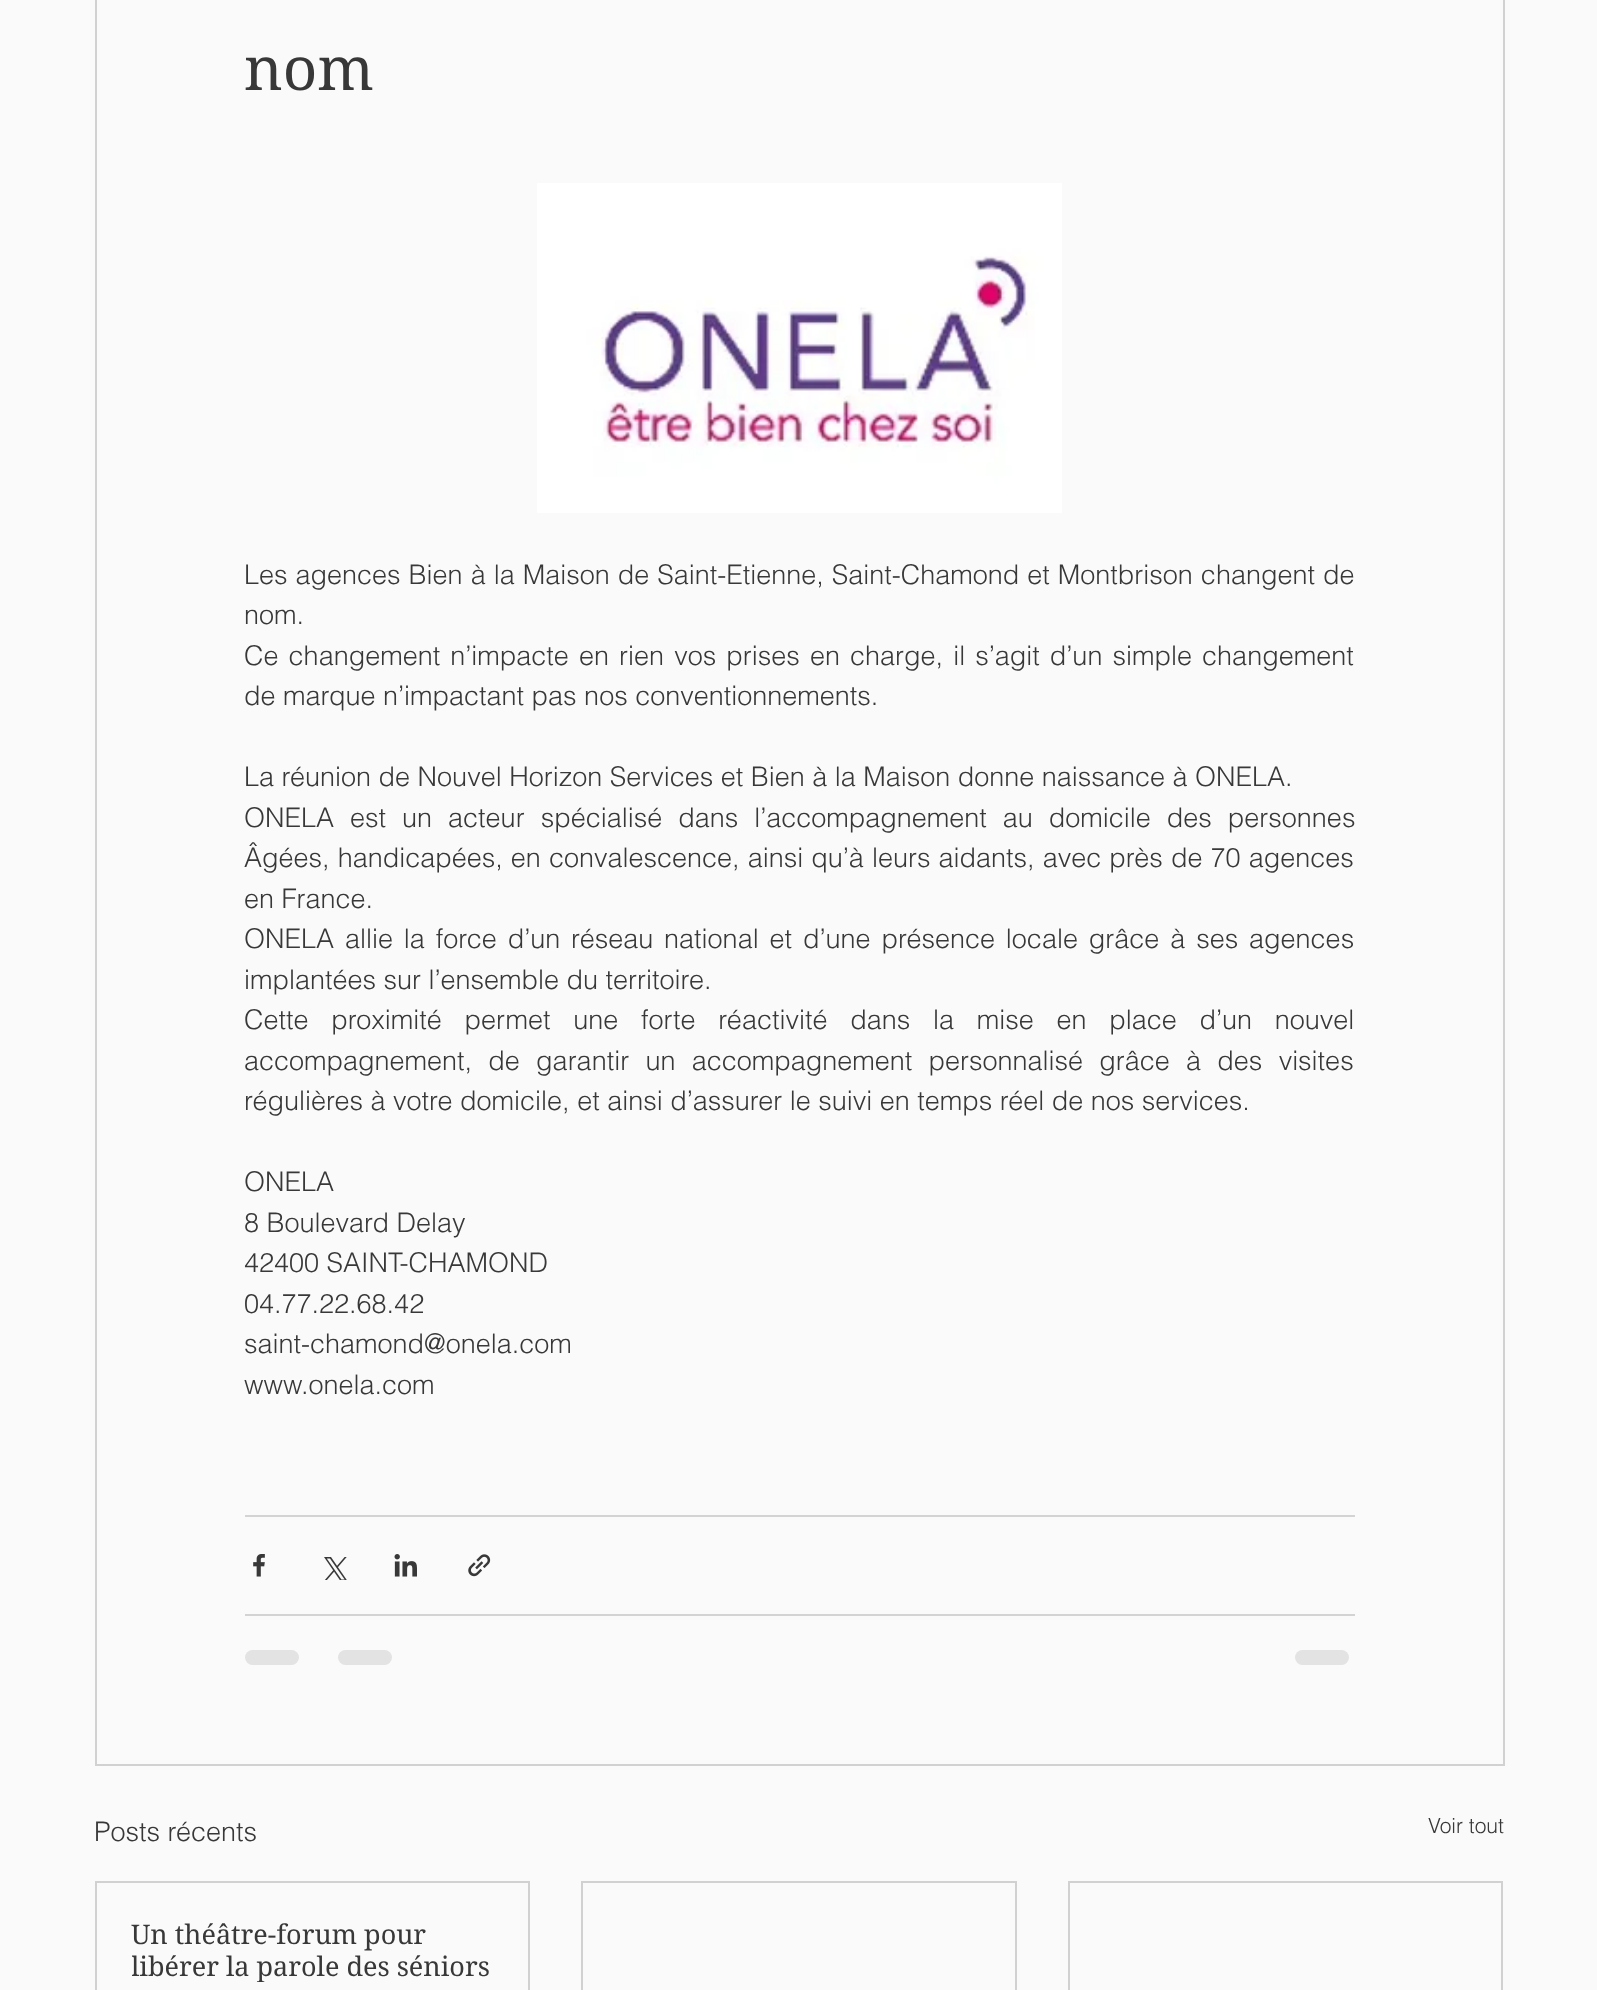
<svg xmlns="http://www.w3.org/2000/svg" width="1597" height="1990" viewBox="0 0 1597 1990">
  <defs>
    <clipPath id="clip1"><rect x="132" y="1919" width="360" height="63"/></clipPath>
  </defs>
  <rect width="100%" height="100%" fill="rgb(250,250,250)"/>
  <rect x="96" y="-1" width="1408" height="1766" fill="none" stroke="rgb(210,209,209)" stroke-width="2"/>
  <text x="244" y="90" font-family="'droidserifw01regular'" font-size="60" fill="rgb(56,56,56)">nom</text>
  <image x="537" y="183" width="525" height="330" href="pic1.png"/>
  <g font-family="helvetica" font-size="27" font-weight="300" fill="rgb(56,56,56)">
    <text>
      <tspan x="244" y="584" word-spacing="0.5">Les agences Bien à la Maison de Saint-Etienne, Saint-Chamond et Montbrison changent de</tspan>
      <tspan x="244" y="624">nom.</tspan>
      <tspan x="244" y="665" word-spacing="2.6">Ce changement n’impacte en rien vos prises en charge, il s’agit d’un simple changement</tspan>
      <tspan x="244" y="705">de marque n’impactant pas nos conventionnements.</tspan>
    </text>
    <text>
      <tspan x="244" y="786">La réunion de Nouvel Horizon Services et Bien à la Maison donne naissance à ONELA.</tspan>
      <tspan x="244" y="827" word-spacing="8.5">ONELA est un acteur spécialisé dans l’accompagnement au domicile des personnes</tspan>
      <tspan x="244" y="867" word-spacing="0.6">Âgées, handicapées, en convalescence, ainsi qu’à leurs aidants, avec près de 70 agences</tspan>
      <tspan x="244" y="908">en France.</tspan>
      <tspan x="244" y="948" word-spacing="3.4">ONELA allie la force d’un réseau national et d’une présence locale grâce à ses agences</tspan>
      <tspan x="244" y="989">implantées sur l’ensemble du territoire.</tspan>
      <tspan x="244" y="1029" word-spacing="15.25">Cette proximité permet une forte réactivité dans la mise en place d’un nouvel</tspan>
      <tspan x="244" y="1070" word-spacing="8.75">accompagnement, de garantir un accompagnement personnalisé grâce à des visites</tspan>
      <tspan x="244" y="1110">régulières à votre domicile, et ainsi d’assurer le suivi en temps réel de nos services.</tspan>
    </text>
    <text>
      <tspan x="244" y="1191">ONELA</tspan>
      <tspan x="244" y="1232">8 Boulevard Delay</tspan>
      <tspan x="244" y="1272">42400 SAINT-CHAMOND</tspan>
      <tspan x="244" y="1313">04.77.22.68.42</tspan>
      <tspan x="244" y="1353">saint-chamond@onela.com</tspan>
      <tspan x="244" y="1394">www.onela.com</tspan>
    </text>
  </g>
  <rect x="245" y="1515" width="1110" height="2" fill="rgb(211,211,211)"/>
  <image x="253" y="1554" width="12" height="23" href="pic2.png"/>
  <image x="324" y="1557" width="23" height="23" href="pic3.png"/>
  <image x="394" y="1554" width="23" height="23" href="pic4.png"/>
  <image x="468" y="1554" width="23" height="23" href="pic5.png"/>
  <rect x="245" y="1614" width="1110" height="2" fill="rgb(211,211,211)"/>
  <rect x="245" y="1650" width="54" height="15" rx="7.5" fill="rgb(227,227,227)"/>
  <rect x="338" y="1650" width="54" height="15" rx="7.5" fill="rgb(227,227,227)"/>
  <rect x="1295" y="1650" width="54" height="15" rx="7.5" fill="rgb(227,227,227)"/>
  <text x="94" y="1841" font-family="helvetica" font-size="27" font-weight="300" fill="rgb(56,56,56)">Posts récents</text>
  <text x="1428" y="1833" font-family="helvetica" font-size="21" font-weight="300" fill="rgb(56,56,56)">Voir tout</text>
  <rect x="96" y="1882" width="433" height="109" fill="none" stroke="rgb(210,209,209)" stroke-width="2"/>
  <text x="131" y="1944" font-family="'droidserifw01regular'" font-size="27" fill="rgb(56,56,56)">Un théâtre-forum pour</text>
  <g clip-path="url(#clip1)">
    <text x="131" y="1976" font-family="'droidserifw01regular'" font-size="27" fill="rgb(56,56,56)">libérer la parole des séniors</text>
  </g>
  <rect x="582" y="1882" width="434" height="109" fill="none" stroke="rgb(210,209,209)" stroke-width="2"/>
  <rect x="1069" y="1882" width="433" height="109" fill="none" stroke="rgb(210,209,209)" stroke-width="2"/>
</svg>
